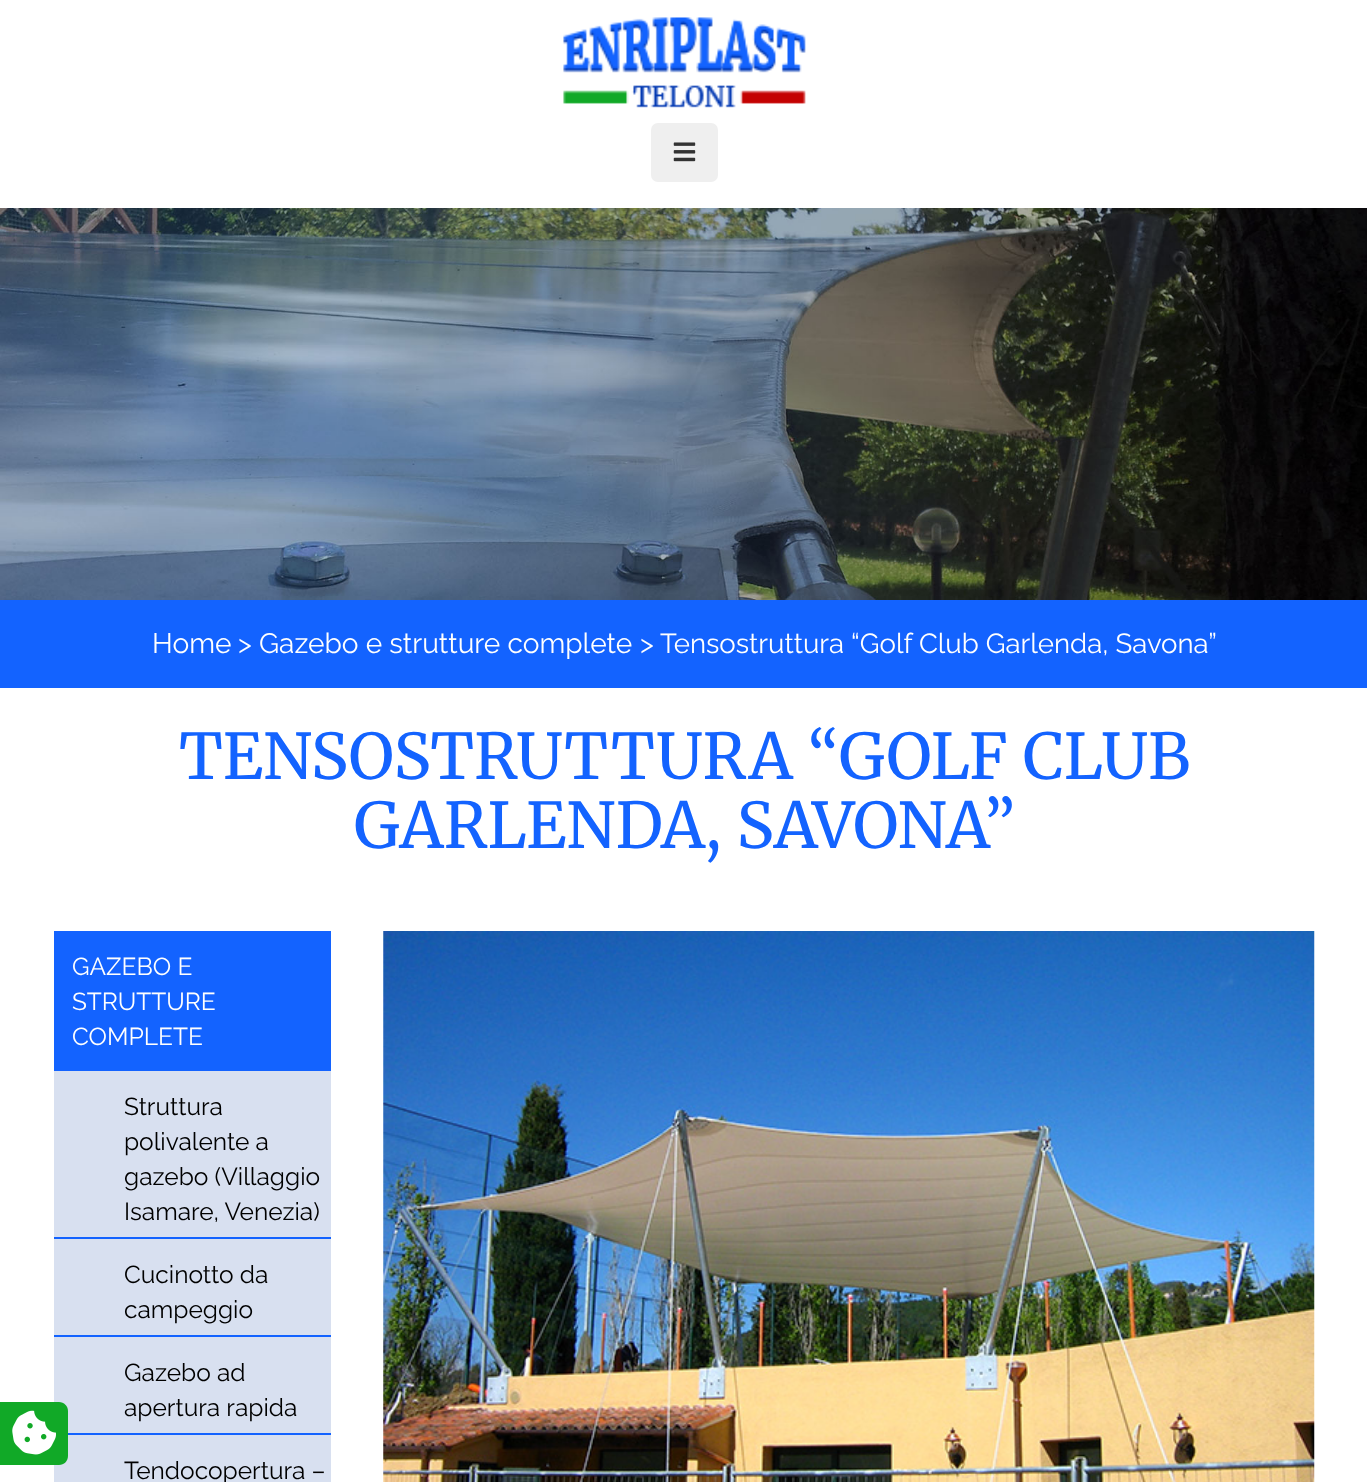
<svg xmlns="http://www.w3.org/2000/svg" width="1367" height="1482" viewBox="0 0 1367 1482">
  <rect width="100%" height="100%" fill="rgb(255,255,255)"/>
  <image x="563" y="17" width="243" height="91" href="pic1.png"/>
  <rect x="651" y="123" width="67" height="59" rx="7" fill="rgb(239,239,239)"/>
  <image x="673" y="142" width="23" height="20" href="pic2.png"/>
  <image x="0" y="208" width="1367" height="392" href="pic3.png"/>
  <rect x="0" y="600" width="1367" height="88" fill="rgb(19,99,255)"/>
  <text x="152" y="653" font-family="Raleway" font-size="28.1" font-weight="100" fill="rgb(255,255,255)">Home</text>
  <text x="238" y="653" font-family="Raleway" font-size="27" font-weight="100" fill="rgb(255,255,255)">&gt;</text>
  <text x="259" y="653" font-family="Raleway" font-size="28.1" font-weight="100" fill="rgb(255,255,255)">Gazebo e strutture complete</text>
  <text x="640" y="653" font-family="Raleway" font-size="27" font-weight="100" fill="rgb(255,255,255)">&gt;</text>
  <text x="660" y="653" font-family="Raleway" font-size="27.6" font-weight="100" fill="rgb(255,255,255)">Tensostruttura “Golf Club Garlenda, Savona”</text>
  <rect x="54" y="1337" width="277" height="96" fill="rgb(216,224,240)"/>
  <rect x="54" y="1435" width="277" height="47" fill="rgb(216,224,240)"/>
  <path d="M0 1402H59C64 1402 68 1406 68 1411V1456C68 1461 64 1465 59 1465H0Z" fill="rgb(17,169,39)"/>
  <image x="12" y="1410" width="44" height="45" href="pic4.png"/>
  <g font-family="Merriweather" font-size="63" font-weight="300" fill="rgb(19,99,255)">
    <text x="179" y="779">TENSOSTRUTTURA “GOLF CLUB</text>
    <text x="354" y="848">GARLENDA, SAVONA”</text>
  </g>
  <rect x="54" y="931" width="277" height="140" fill="rgb(19,99,255)"/>
  <g font-family="Raleway" font-size="24.5" font-weight="100" fill="rgb(255,255,255)">
    <text>
      <tspan x="72" y="975">GAZEBO E</tspan>
      <tspan x="72" y="1010">STRUTTURE</tspan>
      <tspan x="72" y="1045">COMPLETE</tspan>
    </text>
  </g>
  <rect x="54" y="1071" width="277" height="166" fill="rgb(216,224,240)"/>
  <rect x="54" y="1237" width="277" height="2" fill="rgb(19,99,255)"/>
  <g font-family="Raleway" font-size="24.5" font-weight="100" fill="rgb(0,0,0)">
    <text>
      <tspan x="124" y="1115">Struttura</tspan>
      <tspan x="124" y="1150">polivalente a</tspan>
      <tspan x="124" y="1185">gazebo (Villaggio</tspan>
      <tspan x="124" y="1220">Isamare, Venezia)</tspan>
    </text>
  </g>
  <rect x="54" y="1239" width="277" height="96" fill="rgb(216,224,240)"/>
  <rect x="54" y="1335" width="277" height="2" fill="rgb(19,99,255)"/>
  <g font-family="Raleway" font-size="24.5" font-weight="100" fill="rgb(0,0,0)">
    <text>
      <tspan x="124" y="1283">Cucinotto da</tspan>
      <tspan x="124" y="1318">campeggio</tspan>
    </text>
  </g>
  <rect x="68" y="1433" width="263" height="2" fill="rgb(19,99,255)"/>
  <g font-family="Raleway" font-size="24.5" font-weight="100" fill="rgb(0,0,0)">
    <text>
      <tspan x="124" y="1381">Gazebo ad</tspan>
      <tspan x="124" y="1416">apertura rapida</tspan>
    </text>
    <text x="124" y="1479">Tendocopertura –</text>
  </g>
  <image x="383" y="931" width="932" height="551" href="pic5.png"/>
</svg>
